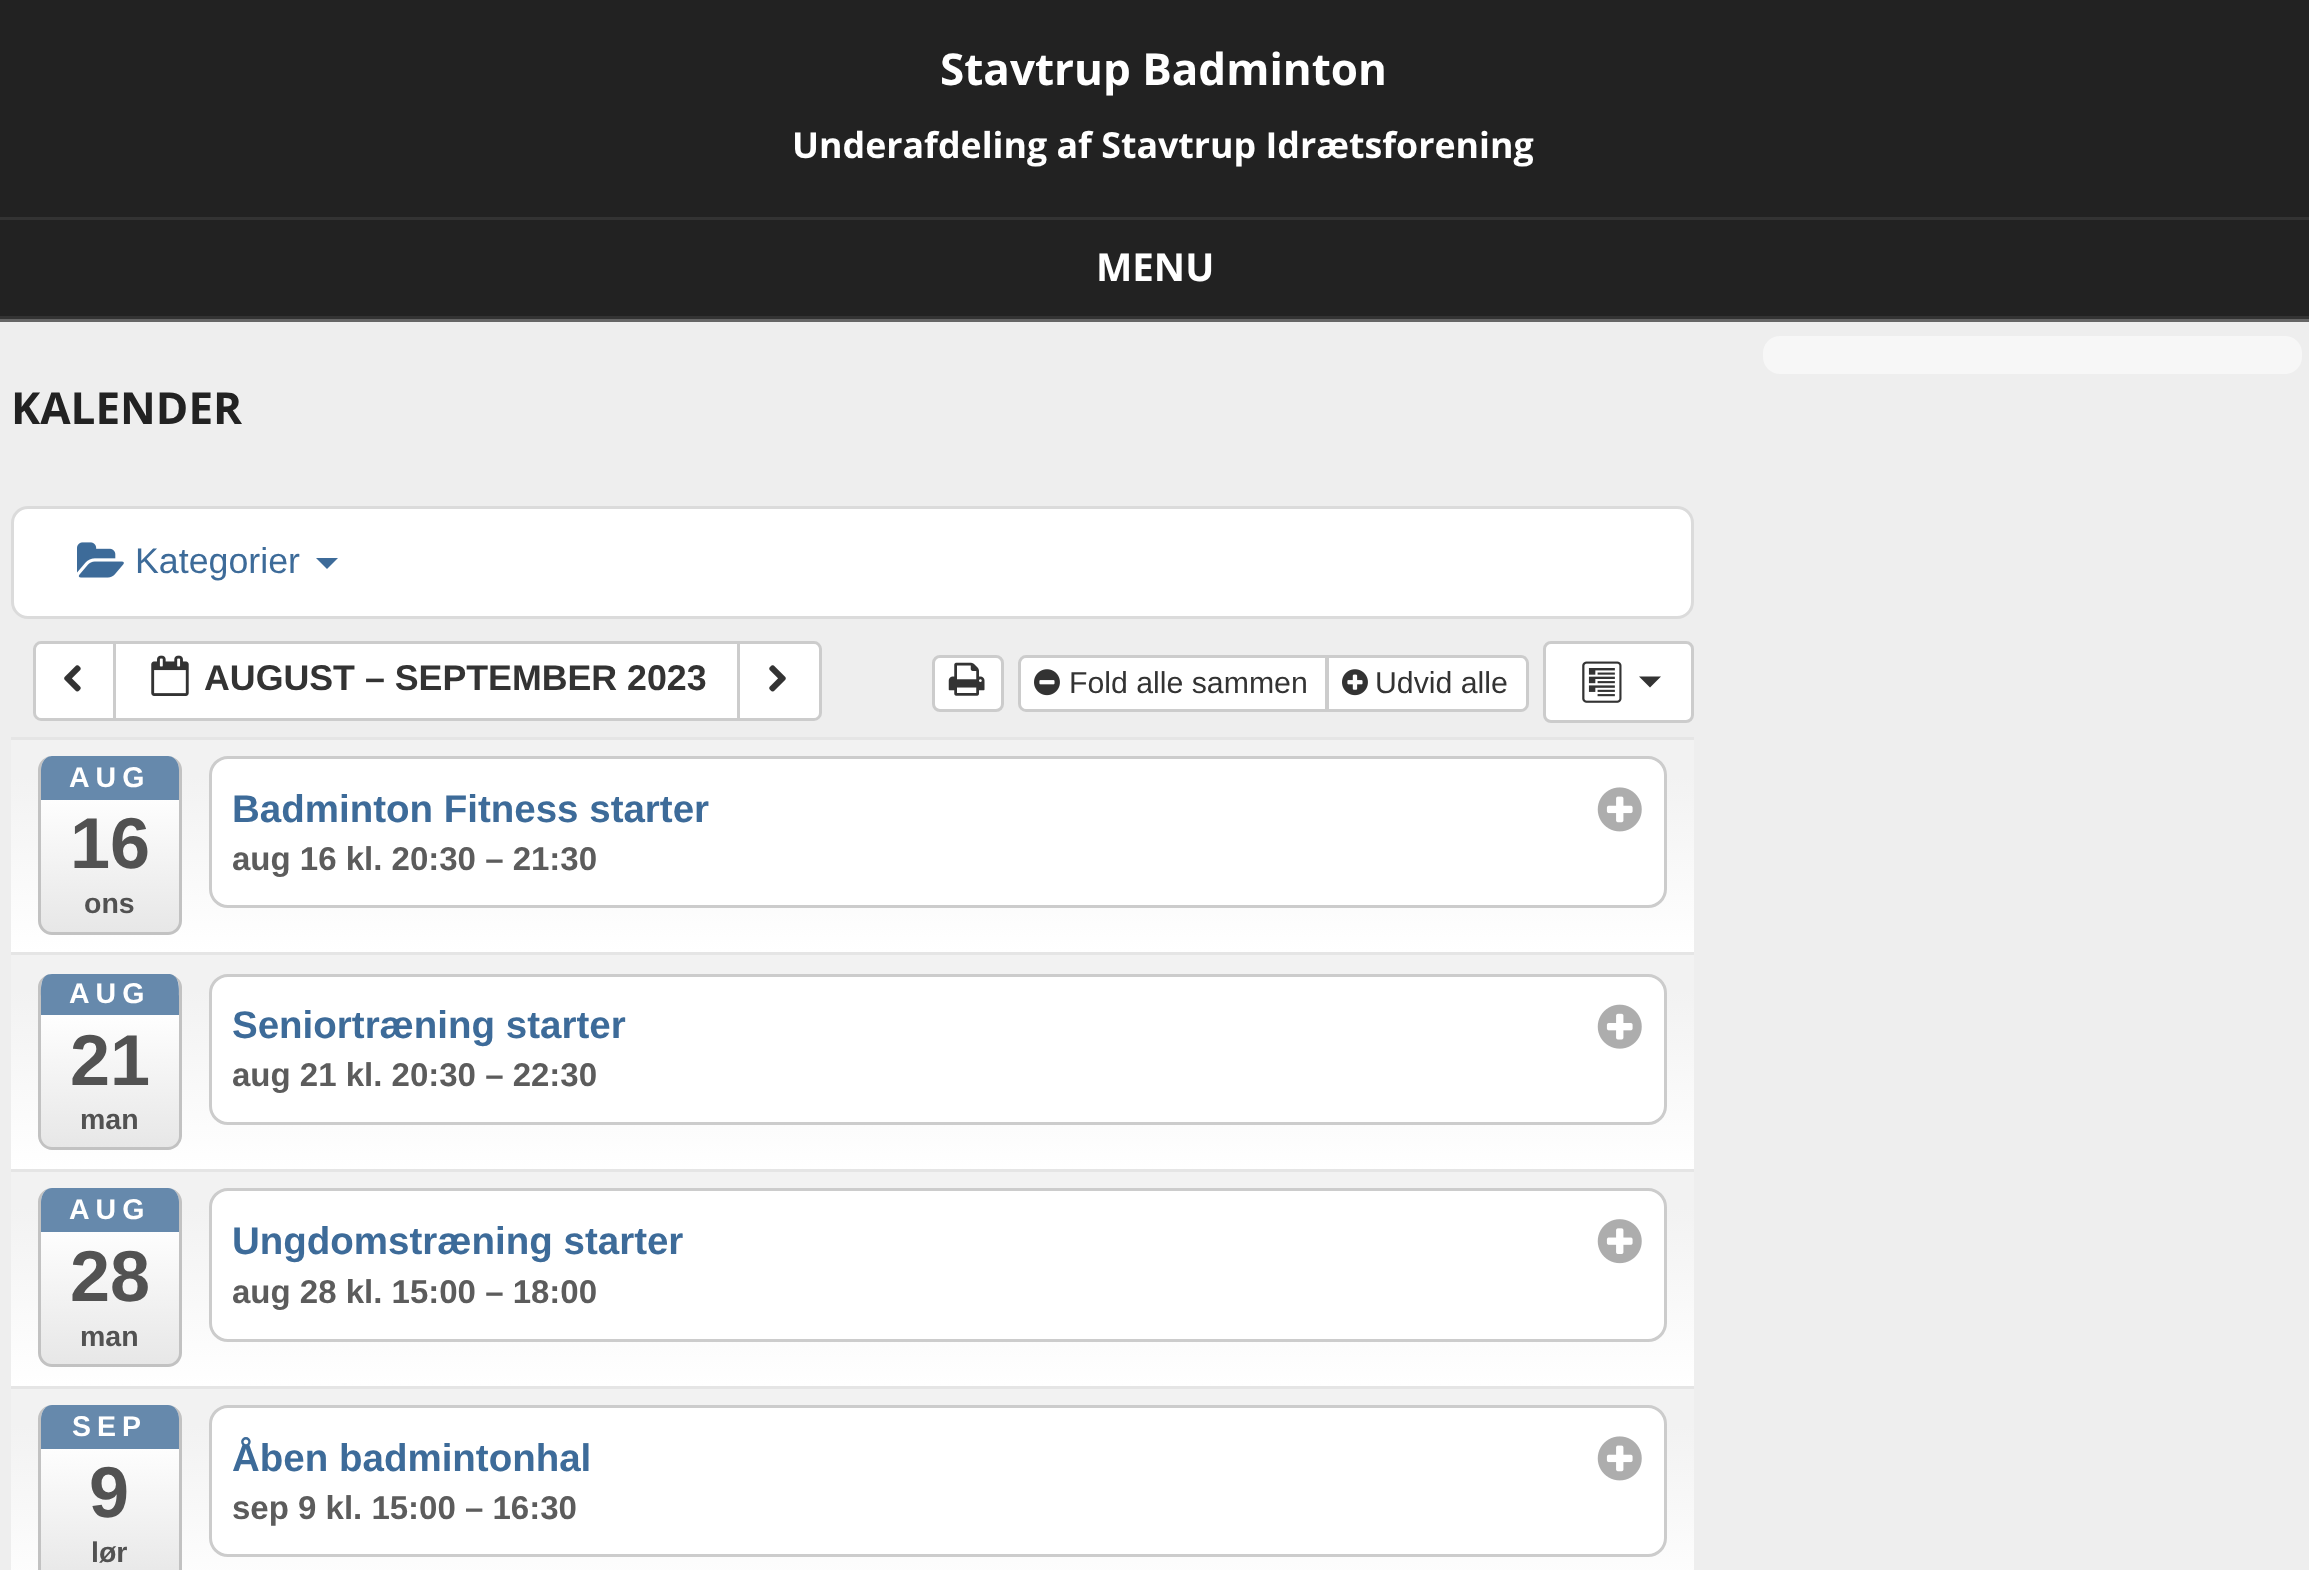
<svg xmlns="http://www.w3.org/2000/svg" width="2309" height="1570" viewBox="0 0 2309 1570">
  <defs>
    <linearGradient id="g1" gradientUnits="userSpaceOnUse" x1="853" y1="740" x2="853" y2="952"><stop offset="0" stop-color="rgb(242,242,242)"/><stop offset="0.17" stop-color="rgb(242,242,242)"/><stop offset="1" stop-color="rgb(255,255,255)"/></linearGradient>
    <clipPath id="clip1"><rect x="39" y="756" width="143" height="179" rx="14"/></clipPath>
    <linearGradient id="g2" gradientUnits="userSpaceOnUse" x1="110" y1="756" x2="110" y2="932"><stop offset="0" stop-color="rgb(255,255,255)"/><stop offset="0.2" stop-color="rgb(255,255,255)"/><stop offset="1" stop-color="rgb(231,231,231)"/></linearGradient>
    <linearGradient id="g3" gradientUnits="userSpaceOnUse" x1="853" y1="954" x2="853" y2="1169"><stop offset="0" stop-color="rgb(242,242,242)"/><stop offset="0.17" stop-color="rgb(242,242,242)"/><stop offset="1" stop-color="rgb(255,255,255)"/></linearGradient>
    <clipPath id="clip2"><rect x="39" y="974" width="143" height="176" rx="14"/></clipPath>
    <linearGradient id="g4" gradientUnits="userSpaceOnUse" x1="110" y1="974" x2="110" y2="1147"><stop offset="0" stop-color="rgb(255,255,255)"/><stop offset="0.21" stop-color="rgb(255,255,255)"/><stop offset="1" stop-color="rgb(231,231,231)"/></linearGradient>
    <linearGradient id="g5" gradientUnits="userSpaceOnUse" x1="853" y1="1171" x2="853" y2="1386"><stop offset="0" stop-color="rgb(242,242,242)"/><stop offset="0.17" stop-color="rgb(242,242,242)"/><stop offset="1" stop-color="rgb(255,255,255)"/></linearGradient>
    <clipPath id="clip3"><rect x="39" y="1188" width="143" height="179" rx="14"/></clipPath>
    <linearGradient id="g6" gradientUnits="userSpaceOnUse" x1="110" y1="1188" x2="110" y2="1364"><stop offset="0" stop-color="rgb(255,255,255)"/><stop offset="0.2" stop-color="rgb(255,255,255)"/><stop offset="1" stop-color="rgb(231,231,231)"/></linearGradient>
    <linearGradient id="g7" gradientUnits="userSpaceOnUse" x1="853" y1="1389" x2="853" y2="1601"><stop offset="0" stop-color="rgb(242,242,242)"/><stop offset="0.17" stop-color="rgb(242,242,242)"/><stop offset="1" stop-color="rgb(255,255,255)"/></linearGradient>
    <clipPath id="clip4"><rect x="39" y="1405" width="143" height="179" rx="14"/></clipPath>
    <linearGradient id="g8" gradientUnits="userSpaceOnUse" x1="110" y1="1405" x2="110" y2="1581"><stop offset="0" stop-color="rgb(255,255,255)"/><stop offset="0.2" stop-color="rgb(255,255,255)"/><stop offset="1" stop-color="rgb(231,231,231)"/></linearGradient>
  </defs>
  <rect width="100%" height="100%" fill="rgb(238,238,238)"/>
  <rect x="0" y="0" width="2309" height="316" fill="rgb(34,34,34)"/>
  <rect x="0" y="319" width="2309" height="3" fill="rgb(102,102,102)"/>
  <text x="940" y="85" font-family="Open Sans" font-size="44" font-weight="bold" fill="rgb(255,255,255)">Stavtrup Badminton</text>
  <text x="792" y="158" font-family="Open Sans" font-size="35.75" font-weight="bold" fill="rgb(255,255,255)">Underafdeling af Stavtrup Idrætsforening</text>
  <rect x="0" y="217" width="2309" height="3" fill="rgb(51,51,51)"/>
  <rect x="0" y="316" width="2309" height="3" fill="rgb(51,51,51)"/>
  <text x="1096" y="281" font-family="Open Sans" font-size="38.5" font-weight="bold" fill="rgb(255,255,255)">MENU</text>
  <rect x="1763" y="336" width="539" height="38" rx="17" fill="rgb(247,247,247)"/>
  <text x="11" y="424" font-family="Open Sans" font-size="44" font-weight="bold" fill="rgb(34,34,34)">KALENDER</text>
  <rect x="12.5" y="507.5" width="1680" height="110" rx="15.5" fill="rgb(255,255,255)" stroke="rgb(219,219,219)" stroke-width="3"/>
  <image x="77" y="542" width="47" height="36" href="pic1.png"/>
  <text x="135" y="573" font-family="Liberation Sans" font-size="35.75" fill="rgb(61,107,153)">Kategorier</text>
  <path d="M316 558H338L327 569Z" fill="rgb(61,107,153)"/>
  <path d="M41 642.5H114.5V719.5H41C37.5 719.5 34.5 716.5 34.5 713V649C34.5 645.5 37.5 642.5 41 642.5Z" fill="rgb(255,255,255)" stroke="rgb(204,204,204)" stroke-width="3"/>
  <image x="64" y="665" width="17" height="27" href="pic2.png"/>
  <rect x="114.5" y="642.5" width="624" height="77" fill="rgb(255,255,255)" stroke="rgb(204,204,204)" stroke-width="3"/>
  <image x="151" y="655" width="38" height="41" href="pic3.png"/>
  <text x="204" y="690" font-family="Liberation Sans" font-size="35.75" font-weight="bold" fill="rgb(51,51,51)">AUGUST – SEPTEMBER 2023</text>
  <path d="M738.5 642.5H814C817.5 642.5 820.5 645.5 820.5 649V713C820.5 716.5 817.5 719.5 814 719.5H738.5Z" fill="rgb(255,255,255)" stroke="rgb(204,204,204)" stroke-width="3"/>
  <image x="769" y="665" width="17" height="27" href="pic4.png"/>
  <rect x="933.5" y="656.5" width="69" height="54" rx="6.5" fill="rgb(255,255,255)" stroke="rgb(204,204,204)" stroke-width="3"/>
  <image x="948" y="662" width="37" height="34" href="pic5.png"/>
  <path d="M1026 656.5H1326.5V710.5H1026C1022.5 710.5 1019.5 707.5 1019.5 704V663C1019.5 659.5 1022.5 656.5 1026 656.5Z" fill="rgb(255,255,255)" stroke="rgb(204,204,204)" stroke-width="3"/>
  <image x="1034" y="669" width="26" height="27" href="pic6.png"/>
  <text x="1069" y="693" font-family="Liberation Sans" font-size="30.25" fill="rgb(51,51,51)">Fold alle sammen</text>
  <path d="M1327.5 656.5H1521C1524.5 656.5 1527.5 659.5 1527.5 663V704C1527.5 707.5 1524.5 710.5 1521 710.5H1327.5Z" fill="rgb(255,255,255)" stroke="rgb(204,204,204)" stroke-width="3"/>
  <image x="1342" y="669" width="26" height="27" href="pic7.png"/>
  <text x="1375" y="693" font-family="Liberation Sans" font-size="30.25" fill="rgb(51,51,51)">Udvid alle</text>
  <rect x="1544.5" y="642.5" width="148" height="79" rx="6.5" fill="rgb(255,255,255)" stroke="rgb(204,204,204)" stroke-width="3"/>
  <image x="1582" y="661" width="40" height="42" href="pic8.png"/>
  <path d="M1639 676.5H1661L1650 687.5Z" fill="rgb(51,51,51)"/>
  <rect x="11" y="740" width="1683" height="212" fill="url(#g1)"/>
  <rect x="11" y="737" width="1683" height="3" fill="rgb(229,229,229)"/>
  <g clip-path="url(#clip1)">
    <rect x="41" y="756" width="138" height="176" fill="url(#g2)"/>
  </g>
  <path d="M52 756H168C175 756 182 762 182 770V921C182 929 175 935 168 935H52C45 935 38 929 38 921V770C38 762 45 756 52 756ZM52 756H168C174 756 179 762 179 770V921C179 927 174 932 168 932H52C46 932 41 927 41 921V770C41 762 46 756 52 756Z" fill="rgb(194,194,194)" fill-rule="evenodd"/>
  <path d="M52 756H168C174 756 179 762 179 770V800H41V770C41 762 46 756 52 756Z" fill="rgb(102,137,172)"/>
  <text x="69" y="787" font-family="Liberation Sans" font-size="28.5" font-weight="bold" letter-spacing="6" fill="rgb(255,255,255)">AUG</text>
  <text x="70" y="868" font-family="Liberation Sans" font-size="72" font-weight="bold" fill="rgb(82,82,82)">16</text>
  <text x="84" y="913" font-family="Liberation Sans" font-size="28.5" font-weight="bold" fill="rgb(82,82,82)">ons</text>
  <rect x="210.5" y="757.5" width="1455" height="149" rx="17.5" fill="rgb(255,255,255)" stroke="rgb(204,204,204)" stroke-width="3"/>
  <text x="232" y="822" font-family="Liberation Sans" font-size="38.5" font-weight="bold" fill="rgb(61,107,153)">Badminton Fitness starter</text>
  <image x="1597" y="787" width="45" height="45" href="pic9.png"/>
  <text x="232" y="870" font-family="Liberation Sans" font-size="33" font-weight="bold" fill="rgb(92,92,92)">aug 16 kl. 20:30 – 21:30</text>
  <rect x="11" y="955" width="1683" height="214" fill="url(#g3)"/>
  <rect x="11" y="952" width="1683" height="3" fill="rgb(229,229,229)"/>
  <g clip-path="url(#clip2)">
    <rect x="41" y="974" width="138" height="173" fill="url(#g4)"/>
  </g>
  <path d="M52 974H168C175 974 182 980 182 987V1136C182 1143 175 1150 168 1150H52C45 1150 38 1143 38 1136V987C38 980 45 974 52 974ZM52 974H168C174 974 179 980 179 987V1136C179 1142 174 1147 168 1147H52C46 1147 41 1142 41 1136V987C41 980 46 974 52 974Z" fill="rgb(194,194,194)" fill-rule="evenodd"/>
  <path d="M52 974H170C180 976 179 989 179 996V1015H41V996C41 988 40 974 52 974Z" fill="rgb(102,137,172)"/>
  <text x="69" y="1003" font-family="Liberation Sans" font-size="28.5" font-weight="bold" letter-spacing="6" fill="rgb(255,255,255)">AUG</text>
  <text x="70" y="1085" font-family="Liberation Sans" font-size="72" font-weight="bold" fill="rgb(82,82,82)">21</text>
  <text x="80" y="1129" font-family="Liberation Sans" font-size="28.5" font-weight="bold" fill="rgb(82,82,82)">man</text>
  <rect x="210.5" y="975.5" width="1455" height="148" rx="17.5" fill="rgb(255,255,255)" stroke="rgb(204,204,204)" stroke-width="3"/>
  <text x="232" y="1038" font-family="Liberation Sans" font-size="38.5" font-weight="bold" fill="rgb(61,107,153)">Seniortræning starter</text>
  <image x="1597" y="1004" width="45" height="45" href="pic10.png"/>
  <text x="232" y="1086" font-family="Liberation Sans" font-size="33" font-weight="bold" fill="rgb(92,92,92)">aug 21 kl. 20:30 – 22:30</text>
  <rect x="11" y="1172" width="1683" height="214" fill="url(#g5)"/>
  <rect x="11" y="1169" width="1683" height="3" fill="rgb(229,229,229)"/>
  <g clip-path="url(#clip3)">
    <rect x="41" y="1188" width="138" height="176" fill="url(#g6)"/>
  </g>
  <path d="M52 1188H168C175 1188 182 1194 182 1202V1353C182 1361 175 1367 168 1367H52C45 1367 38 1361 38 1353V1202C38 1194 45 1188 52 1188ZM52 1188H168C174 1188 179 1194 179 1202V1353C179 1359 174 1364 168 1364H52C46 1364 41 1359 41 1353V1202C41 1194 46 1188 52 1188Z" fill="rgb(194,194,194)" fill-rule="evenodd"/>
  <path d="M52 1188C46 1188 41 1194 41 1202V1232H179V1202C179 1194 174 1188 168 1188Z" fill="rgb(102,137,172)"/>
  <text x="69" y="1219" font-family="Liberation Sans" font-size="28.5" font-weight="bold" letter-spacing="6" fill="rgb(255,255,255)">AUG</text>
  <text x="70" y="1301" font-family="Liberation Sans" font-size="72" font-weight="bold" fill="rgb(82,82,82)">28</text>
  <text x="80" y="1346" font-family="Liberation Sans" font-size="28.5" font-weight="bold" fill="rgb(82,82,82)">man</text>
  <rect x="210.5" y="1189.5" width="1455" height="151" rx="17.5" fill="rgb(255,255,255)" stroke="rgb(204,204,204)" stroke-width="3"/>
  <text x="232" y="1254" font-family="Liberation Sans" font-size="38.5" font-weight="bold" fill="rgb(61,107,153)">Ungdomstræning starter</text>
  <image x="1597" y="1219" width="45" height="45" href="pic11.png"/>
  <text x="232" y="1303" font-family="Liberation Sans" font-size="33" font-weight="bold" fill="rgb(92,92,92)">aug 28 kl. 15:00 – 18:00</text>
  <rect x="11" y="1389" width="1683" height="181" fill="url(#g7)"/>
  <rect x="11" y="1386" width="1683" height="3" fill="rgb(229,229,229)"/>
  <g clip-path="url(#clip4)">
    <rect x="41" y="1405" width="138" height="165" fill="url(#g8)"/>
  </g>
  <path d="M52 1405H168C175 1405 182 1411 182 1419V1570C182 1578 175 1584 168 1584H52C45 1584 38 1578 38 1570V1419C38 1411 45 1405 52 1405ZM52 1405H168C174 1405 179 1411 179 1419V1570C179 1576 174 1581 168 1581H52C46 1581 41 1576 41 1570V1419C41 1411 46 1405 52 1405Z" fill="rgb(194,194,194)" fill-rule="evenodd"/>
  <path d="M52 1405H168C174 1405 179 1411 179 1419V1449H41V1419C41 1411 46 1405 52 1405Z" fill="rgb(102,137,172)"/>
  <text x="72" y="1436" font-family="Liberation Sans" font-size="28.5" font-weight="bold" letter-spacing="6" fill="rgb(255,255,255)">SEP</text>
  <text x="89" y="1517" font-family="Liberation Sans" font-size="72" font-weight="bold" fill="rgb(82,82,82)">9</text>
  <text x="91" y="1562" font-family="Liberation Sans" font-size="28.5" font-weight="bold" fill="rgb(82,82,82)">lør</text>
  <rect x="210.5" y="1406.5" width="1455" height="149" rx="17.5" fill="rgb(255,255,255)" stroke="rgb(204,204,204)" stroke-width="3"/>
  <text x="232" y="1471" font-family="Liberation Sans" font-size="38.5" font-weight="bold" fill="rgb(61,107,153)">Åben badmintonhal</text>
  <image x="1597" y="1436" width="45" height="45" href="pic9.png"/>
  <text x="232" y="1519" font-family="Liberation Sans" font-size="33" font-weight="bold" fill="rgb(92,92,92)">sep 9 kl. 15:00 – 16:30</text>
</svg>
